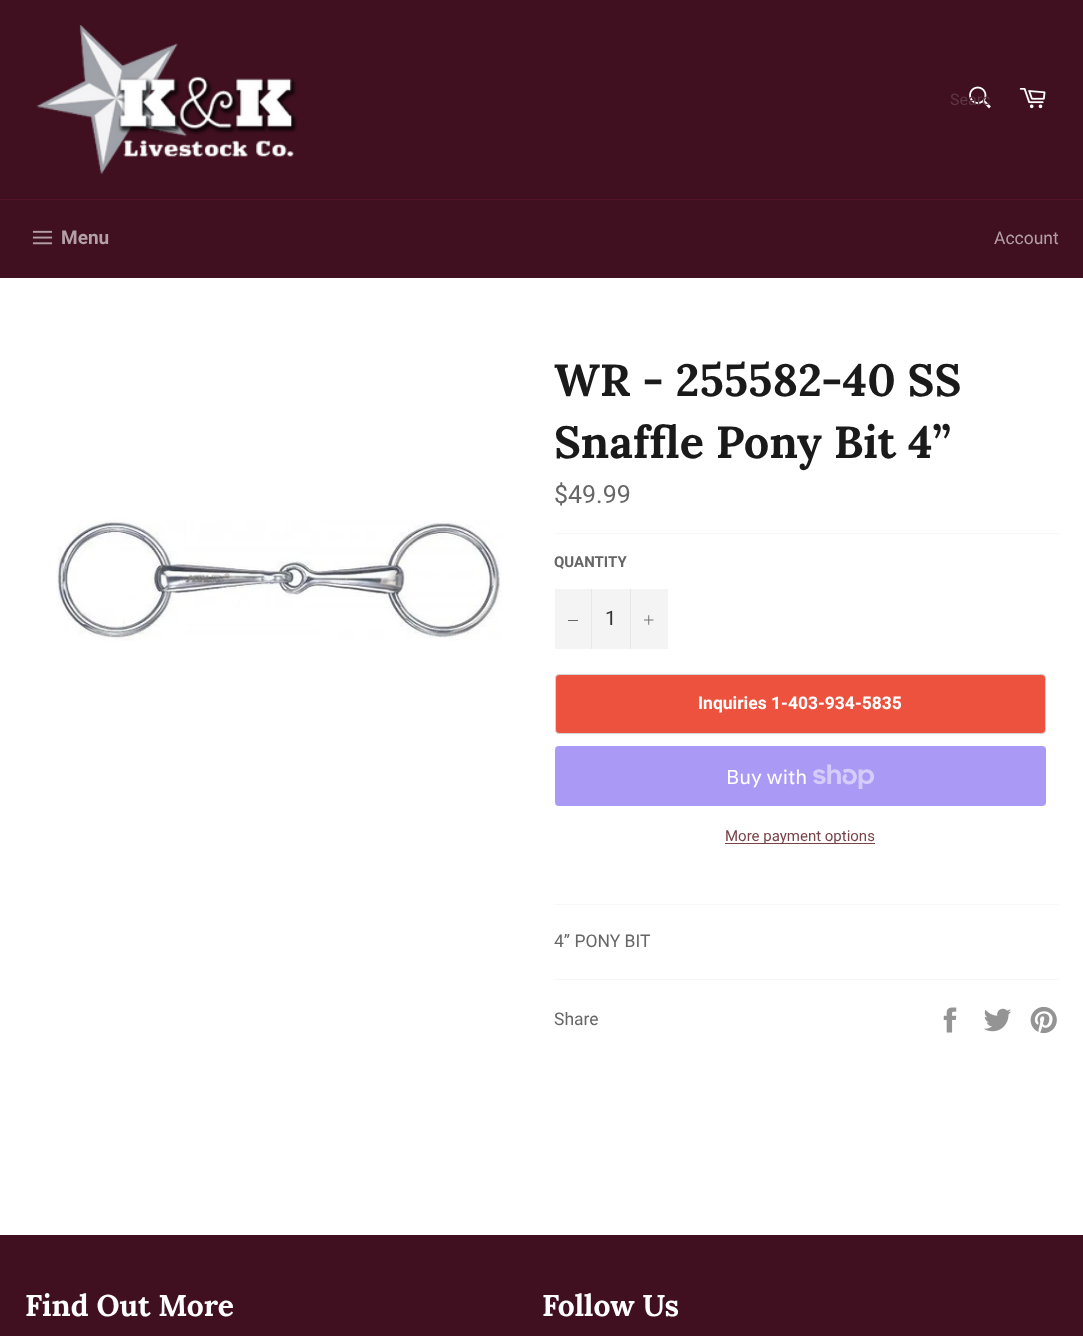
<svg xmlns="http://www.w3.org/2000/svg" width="1083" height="1336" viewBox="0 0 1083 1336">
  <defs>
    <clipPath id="clip1"><rect x="950" y="90" width="40" height="19"/></clipPath>
  </defs>
  <rect width="100%" height="100%" fill="rgb(64,16,33)"/>
  <image x="36" y="25" width="261" height="149" href="pic1.png"/>
  <image x="969" y="86" width="22" height="23" href="pic2.png"/>
  <g clip-path="url(#clip1)">
    <text x="950" y="105" font-family="Roboto" font-size="16" fill="rgb(94,54,68)">Searc</text>
  </g>
  <image x="1019" y="88" width="27" height="21" href="pic3.png"/>
  <rect x="0" y="199" width="1083" height="1" fill="rgb(84,21,44)"/>
  <image x="32" y="230" width="21" height="15" href="pic4.png"/>
  <text x="61" y="244" font-family="Roboto" font-size="19" font-weight="bold" fill="rgb(179,159,166)">Menu</text>
  <text x="994" y="244" font-family="Roboto" font-size="17.5" fill="rgb(179,159,166)">Account</text>
  <rect x="0" y="278" width="1083" height="957" fill="rgb(255,255,255)"/>
  <image x="56" y="519" width="446" height="122" href="pic5.png"/>
  <g font-family="Lora" font-size="45" font-weight="bold" fill="rgb(26,26,26)">
    <text>
      <tspan x="554" y="396">WR - 255582-40 SS</tspan>
      <tspan x="554" y="458">Snaffle Pony Bit 4”</tspan>
    </text>
  </g>
  <text x="554" y="503" font-family="Roboto" font-size="25" fill="rgb(102,102,102)">$49.99</text>
  <rect x="555" y="533" width="504" height="1" fill="rgb(247,247,247)"/>
  <text x="554" y="567" font-family="Roboto" font-size="15" font-weight="bold" fill="rgb(102,102,102)">QUANTITY</text>
  <rect x="555" y="589" width="113" height="60" fill="rgb(244,244,244)"/>
  <rect x="591" y="589" width="1" height="60" fill="rgb(231,231,231)"/>
  <rect x="568" y="620" width="10" height="1" fill="rgb(102,102,102)"/>
  <text x="605" y="625" font-family="Roboto" font-size="20" fill="rgb(51,51,51)">1</text>
  <rect x="630" y="589" width="1" height="60" fill="rgb(231,231,231)"/>
  <image x="644" y="615" width="10" height="10" href="pic6.png"/>
  <rect x="555.5" y="674.5" width="490" height="59" rx="3.5" fill="rgb(236,82,62)" stroke="rgb(213,213,213)"/>
  <text x="698" y="709" font-family="Roboto" font-size="17.5" font-weight="bold" fill="rgb(255,255,255)">Inquiries 1-403-934-5835</text>
  <rect x="555" y="746" width="491" height="60" rx="4" fill="rgb(170,153,245)"/>
  <text x="726" y="784" font-family="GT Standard" font-size="20" fill="rgb(255,255,255)">Buy with</text>
  <image x="813" y="764" width="62" height="25" href="pic7.png"/>
  <rect x="725" y="843" width="150" height="1" fill="rgb(120,66,70)"/>
  <text x="725" y="841" font-family="Roboto" font-size="15" fill="rgb(120,66,70)">More payment options</text>
  <rect x="555" y="904" width="504" height="1" fill="rgb(247,247,247)"/>
  <text x="554" y="947" font-family="Roboto" font-size="17.5" fill="rgb(102,102,102)">4” PONY BIT</text>
  <rect x="555" y="979" width="504" height="1" fill="rgb(247,247,247)"/>
  <text x="554" y="1025" font-family="Roboto" font-size="17.5" fill="rgb(102,102,102)">Share</text>
  <image x="943" y="1007" width="14" height="26" href="pic8.png"/>
  <image x="984" y="1008" width="28" height="24" href="pic9.png"/>
  <image x="1030" y="1006" width="27" height="28" href="pic10.png"/>
  <g font-family="Lora" font-size="30" font-weight="bold" fill="rgb(255,255,255)">
    <text x="25" y="1316">Find Out More</text>
    <text x="542" y="1316">Follow Us</text>
  </g>
</svg>
